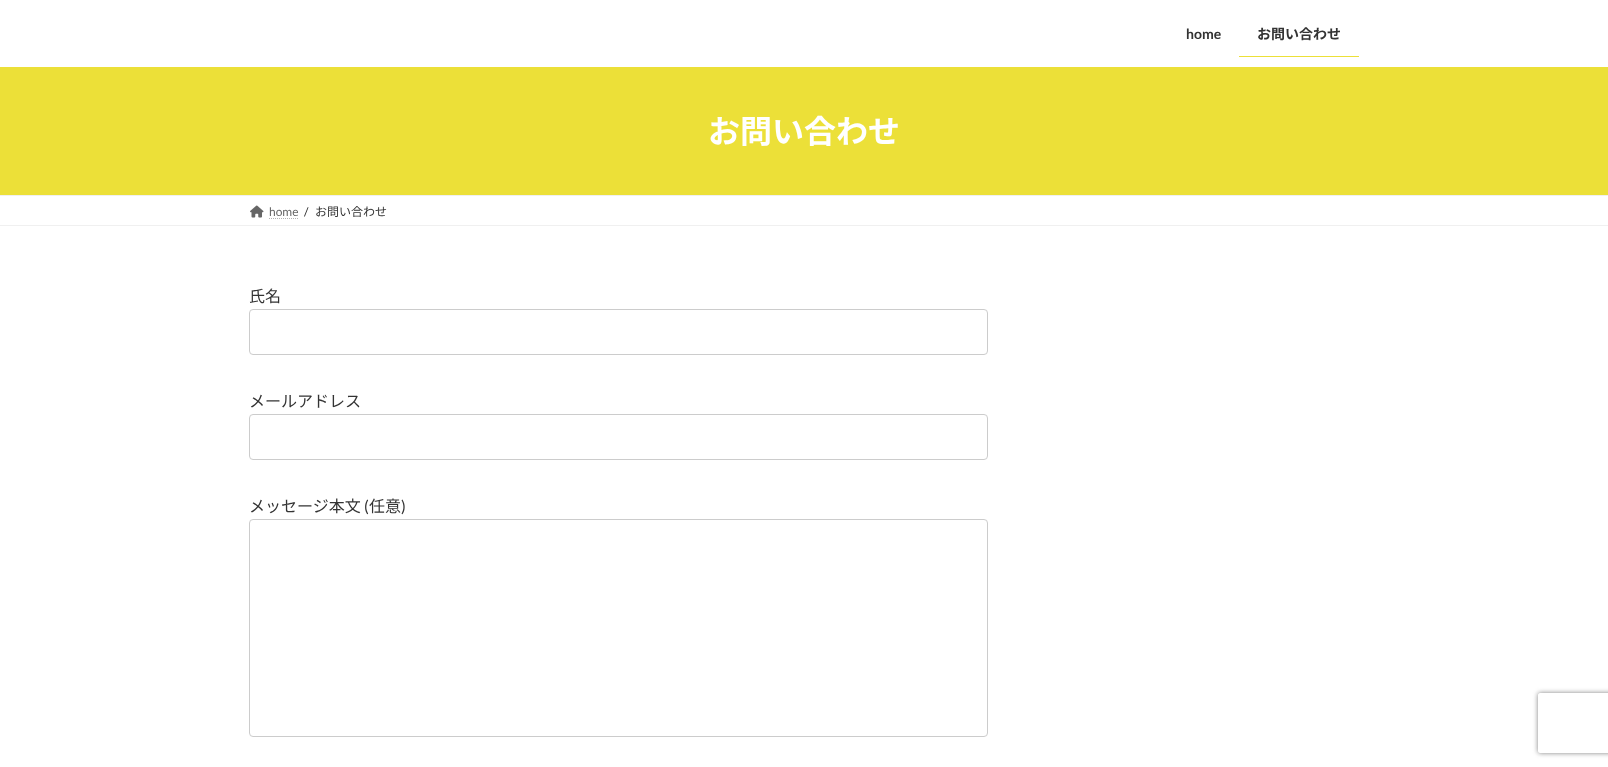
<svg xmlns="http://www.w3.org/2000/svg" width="1608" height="767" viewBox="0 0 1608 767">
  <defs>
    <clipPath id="clip1"><path d="M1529 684H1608V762H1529ZM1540 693H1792C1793 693 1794 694 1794 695V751C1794 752 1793 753 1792 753H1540C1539 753 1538 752 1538 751V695C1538 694 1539 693 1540 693Z" clip-rule="evenodd"/></clipPath>
  </defs>
  <rect width="100%" height="100%" fill="rgb(255,255,255)"/>
  <text x="1186" y="39" font-family="Lato" font-size="14" font-weight="bold" fill="rgb(51,51,51)">home</text>
  <text x="1257" y="39" font-family="Noto Sans JP" font-size="14" font-weight="bold" fill="rgb(51,51,51)">お問い合わせ</text>
  <rect x="1239" y="56" width="120" height="1" fill="rgb(236,224,56)"/>
  <rect x="0" y="67" width="1608" height="128" fill="rgb(236,224,56)"/>
  <text x="708" y="143" font-family="Noto Sans JP" font-size="32" font-weight="bold" fill="rgb(255,255,255)">お問い合わせ</text>
  <rect x="0" y="195" width="1608" height="1" fill="rgb(240,240,240)"/>
  <rect x="0" y="225" width="1608" height="1" fill="rgb(240,240,240)"/>
  <image x="250" y="205" width="14" height="13" href="pic1.png"/>
  <text x="269" y="216" font-family="Lato" font-size="12" fill="rgb(102,102,102)">home</text>
  <path d="M269 218.5H298.5" fill="none" stroke="rgb(179,179,179)" stroke-dasharray="1 1"/>
  <text x="304" y="216" font-family="Lato" font-size="12" fill="rgb(51,51,51)">/</text>
  <text x="315" y="216" font-family="Noto Sans JP" font-size="12" fill="rgb(51,51,51)">お問い合わせ</text>
  <text x="249" y="302" font-family="Noto Sans JP" font-size="16" fill="rgb(51,51,51)">氏名</text>
  <rect x="249.5" y="309.5" width="738" height="45" rx="3.5" fill="none" stroke="rgb(204,204,204)"/>
  <text x="249" y="407" font-family="Noto Sans JP" font-size="16" fill="rgb(51,51,51)">メールアドレス</text>
  <rect x="249.5" y="414.5" width="738" height="45" rx="3.5" fill="none" stroke="rgb(204,204,204)"/>
  <text x="249" y="512" font-family="Noto Sans JP" font-size="16" fill="rgb(51,51,51)">メッセージ本文</text>
  <text x="364" y="512" font-family="Lato" font-size="16" fill="rgb(51,51,51)">(</text>
  <text x="369" y="512" font-family="Noto Sans JP" font-size="16" fill="rgb(51,51,51)">任意</text>
  <text x="401" y="512" font-family="Lato" font-size="16" fill="rgb(51,51,51)">)</text>
  <rect x="249.5" y="519.5" width="738" height="217" rx="3.5" fill="none" stroke="rgb(204,204,204)"/>
  <g clip-path="url(#clip1)">
    <rect x="1538" y="693" width="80" height="60" rx="2" fill="rgb(128,128,128)" filter="blur(2.5px)"/>
  </g>
</svg>
